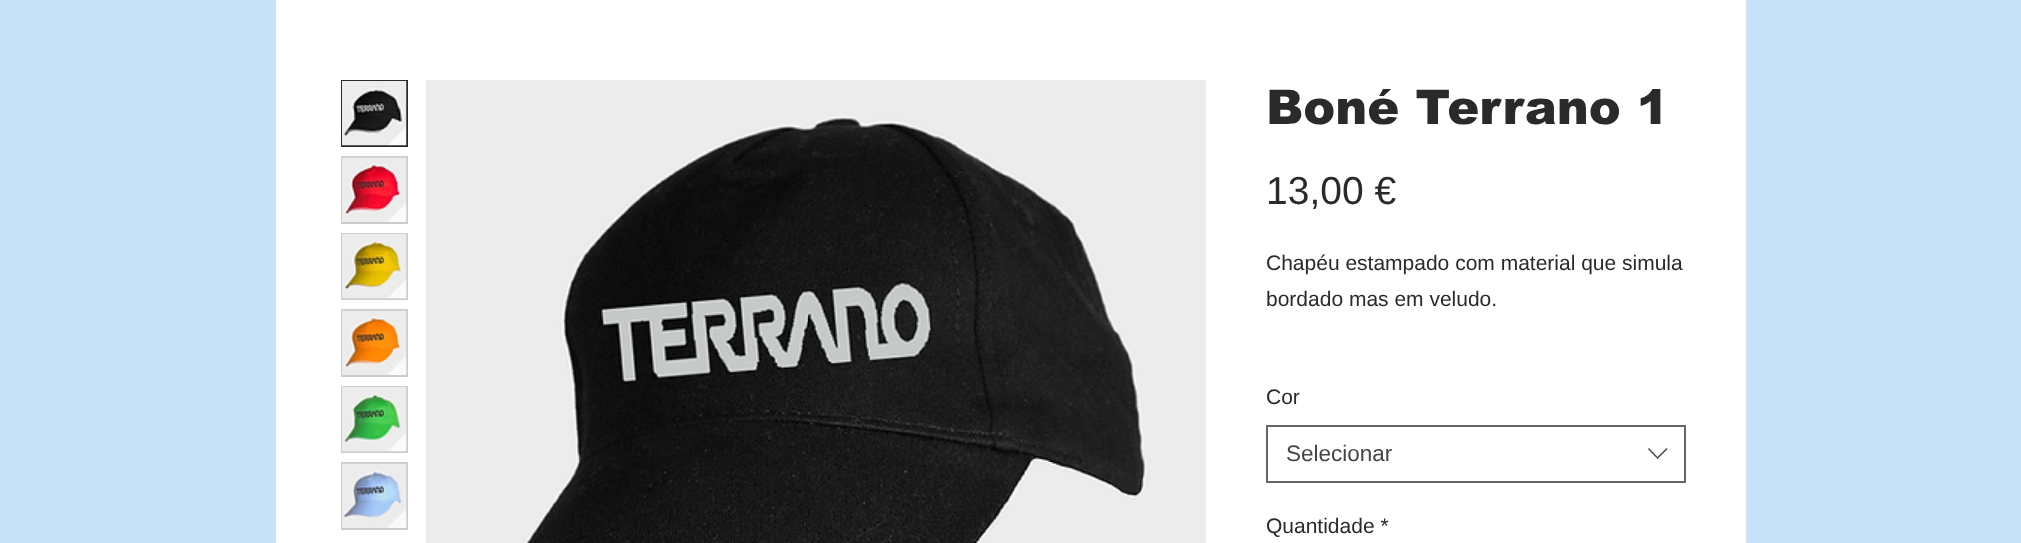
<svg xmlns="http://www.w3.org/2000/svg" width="2021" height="543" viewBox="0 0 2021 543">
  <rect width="100%" height="100%" fill="rgb(199,226,248)"/>
  <rect x="276" y="0" width="1470" height="543" fill="rgb(255,255,255)"/>
  <rect x="342" y="81" width="65" height="65" fill="none" stroke="rgb(42,42,42)" stroke-width="2"/>
  <image x="342" y="81" width="65" height="65" href="pic1.png"/>
  <rect x="342" y="157" width="65" height="66" fill="none" stroke="rgb(204,204,204)" stroke-width="2"/>
  <image x="342" y="157" width="65" height="65" href="pic2.png"/>
  <rect x="342" y="234" width="65" height="65" fill="none" stroke="rgb(204,204,204)" stroke-width="2"/>
  <image x="342" y="234" width="65" height="65" href="pic3.png"/>
  <rect x="342" y="310" width="65" height="66" fill="none" stroke="rgb(204,204,204)" stroke-width="2"/>
  <image x="342" y="310" width="65" height="65" href="pic4.png"/>
  <rect x="342" y="387" width="65" height="65" fill="none" stroke="rgb(204,204,204)" stroke-width="2"/>
  <image x="342" y="387" width="65" height="65" href="pic5.png"/>
  <rect x="342" y="463" width="65" height="66" fill="none" stroke="rgb(204,204,204)" stroke-width="2"/>
  <image x="342" y="463" width="65" height="65" href="pic6.png"/>
  <image x="426" y="80" width="780" height="463" href="pic7.png"/>
  <text x="1266" y="124" font-family="arial" font-size="48" font-weight="900" fill="rgb(42,42,42)">Boné Terrano 1</text>
  <text x="1266" y="204" font-family="Liberation Sans" font-size="39" fill="rgb(42,42,42)">13,00 €</text>
  <g font-family="Liberation Sans" font-size="21" fill="rgb(42,42,42)">
    <text>
      <tspan x="1266" y="270">Chapéu estampado com material que simula</tspan>
      <tspan x="1266" y="306">bordado mas em veludo.</tspan>
    </text>
    <text x="1266" y="404">Cor</text>
  </g>
  <rect x="1267" y="426" width="418" height="56" fill="none" stroke="rgb(102,102,102)" stroke-width="2"/>
  <text x="1286" y="461" font-family="Liberation Sans" font-size="22.5" fill="rgb(68,68,68)">Selecionar</text>
  <path d="M1666.5 448L1667.5 449L1657.5 459L1648 449L1649 448L1657.5 457Z" fill="rgb(68,68,68)" fill-rule="evenodd"/>
  <text x="1266" y="533" font-family="Liberation Sans" font-size="21" fill="rgb(42,42,42)">Quantidade *</text>
</svg>
